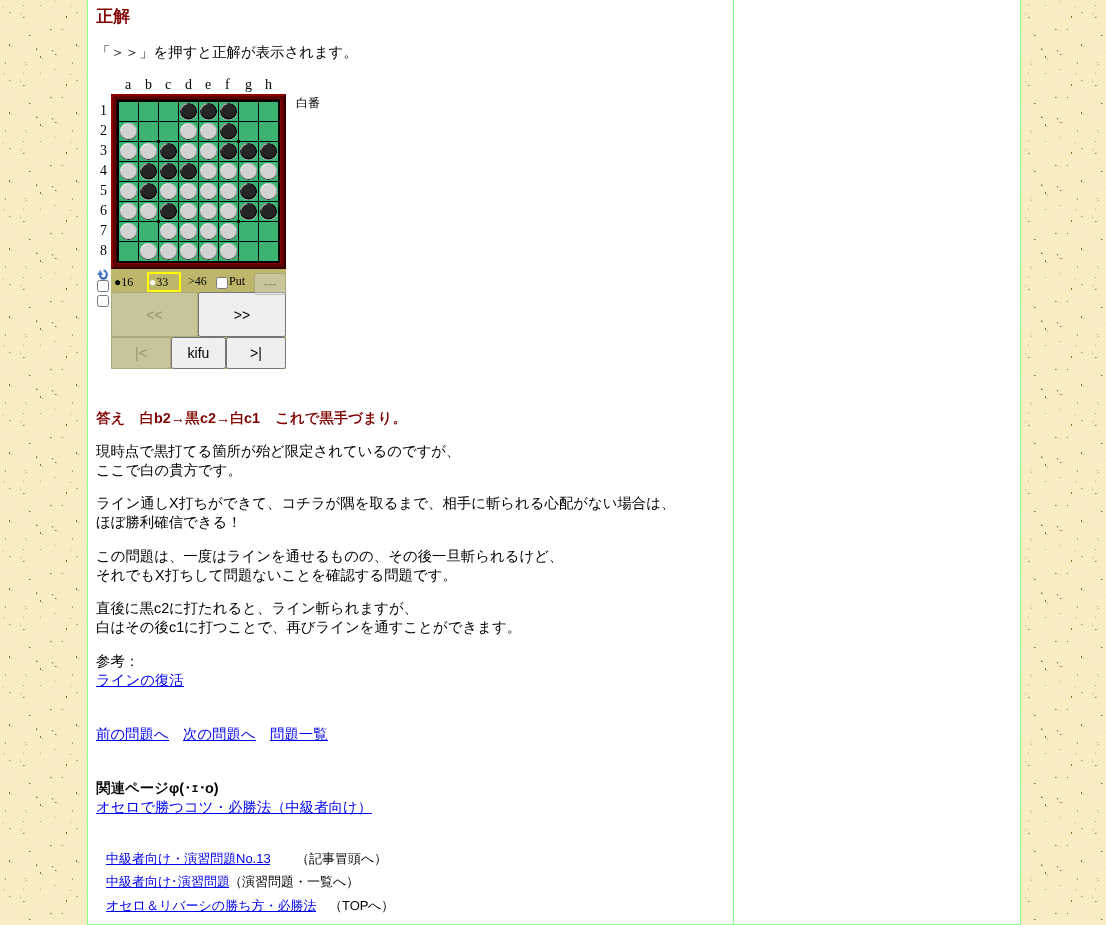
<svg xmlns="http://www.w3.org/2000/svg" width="1106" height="925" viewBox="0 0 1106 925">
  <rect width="100%" height="100%" fill="rgb(255,255,255)"/>
  <image x="0" y="0" width="1106" height="925" href="pic1.png"/>
  <rect x="87.5" y="-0.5" width="933" height="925" fill="rgb(255,255,255)" stroke="rgb(134,255,134)"/>
  <rect x="733" y="0" width="1" height="924" fill="rgb(134,255,134)"/>
  <text x="96" y="22" font-family="WenQuanYi Zen Hei" font-size="17" font-weight="bold" fill="rgb(128,0,0)">正解</text>
  <text x="96" y="57" font-family="WenQuanYi Zen Hei" font-size="14.4" font-weight="500" fill="rgb(0,0,0)">「＞＞」を押すと正解が表示されます。</text>
  <image x="97" y="78" width="223" height="291" href="pic2.png"/>
  <text x="96" y="423" font-family="WenQuanYi Zen Hei" font-size="14.4" font-weight="bold" fill="rgb(128,0,0)">答え　白</text>
  <text x="154" y="423" font-family="Liberation Sans" font-size="14.4" font-weight="bold" fill="rgb(128,0,0)">b2→</text>
  <text x="185" y="423" font-family="WenQuanYi Zen Hei" font-size="14.4" font-weight="bold" fill="rgb(128,0,0)">黒</text>
  <text x="200" y="423" font-family="Liberation Sans" font-size="14.4" font-weight="bold" fill="rgb(128,0,0)">c2→</text>
  <text x="230" y="423" font-family="WenQuanYi Zen Hei" font-size="14.4" font-weight="bold" fill="rgb(128,0,0)">白</text>
  <text x="244" y="423" font-family="Liberation Sans" font-size="14.4" font-weight="bold" fill="rgb(128,0,0)">c1</text>
  <text x="275" y="423" font-family="WenQuanYi Zen Hei" font-size="14.4" font-weight="bold" fill="rgb(128,0,0)">これで黒手づまり。</text>
  <g font-family="WenQuanYi Zen Hei" font-size="14.4" font-weight="500" fill="rgb(0,0,0)">
    <text>
      <tspan x="96" y="456">現時点で黒打てる箇所が殆ど限定されているのですが、</tspan>
      <tspan x="96" y="475">ここで白の貴方です。</tspan>
    </text>
    <text x="96" y="508">ライン通し</text>
  </g>
  <text x="169" y="508" font-family="Liberation Sans" font-size="14.4" fill="rgb(0,0,0)">X</text>
  <g font-family="WenQuanYi Zen Hei" font-size="14.4" font-weight="500" fill="rgb(0,0,0)">
    <text x="179" y="508">打ちができて、コチラが隅を取るまで、相手に斬られる心配がない場合は、</text>
    <text x="96" y="527">ほぼ勝利確信できる！</text>
    <text>
      <tspan x="96" y="561">この問題は、一度はラインを通せるものの、その後一旦斬られるけど、</tspan>
      <tspan x="96" y="580">それでも</tspan>
    </text>
  </g>
  <text x="155" y="580" font-family="Liberation Sans" font-size="14.4" fill="rgb(0,0,0)">X</text>
  <g font-family="WenQuanYi Zen Hei" font-size="14.4" font-weight="500" fill="rgb(0,0,0)">
    <text x="165" y="580">打ちして問題ないことを確認する問題です。</text>
    <text x="96" y="613">直後に黒</text>
  </g>
  <text x="154" y="613" font-family="Liberation Sans" font-size="14.4" fill="rgb(0,0,0)">c2</text>
  <g font-family="WenQuanYi Zen Hei" font-size="14.4" font-weight="500" fill="rgb(0,0,0)">
    <text x="169" y="613">に打たれると、ライン斬られますが、</text>
    <text x="96" y="632">白はその後</text>
  </g>
  <text x="169" y="632" font-family="Liberation Sans" font-size="14.4" fill="rgb(0,0,0)">c1</text>
  <g font-family="WenQuanYi Zen Hei" font-size="14.4" font-weight="500" fill="rgb(0,0,0)">
    <text x="184" y="632">に打つことで、再びラインを通すことができます。</text>
    <text x="96" y="666">参考：</text>
  </g>
  <rect x="96" y="686" width="88" height="1" fill="rgb(0,0,238)"/>
  <text x="96" y="685" font-family="WenQuanYi Zen Hei" font-size="14.4" font-weight="500" fill="rgb(0,0,238)">ラインの復活</text>
  <rect x="96" y="740" width="73" height="1" fill="rgb(0,0,238)"/>
  <text x="96" y="739" font-family="WenQuanYi Zen Hei" font-size="14.4" font-weight="500" fill="rgb(0,0,238)">前の問題へ</text>
  <rect x="183" y="740" width="73" height="1" fill="rgb(0,0,238)"/>
  <text x="183" y="739" font-family="WenQuanYi Zen Hei" font-size="14.4" font-weight="500" fill="rgb(0,0,238)">次の問題へ</text>
  <rect x="270" y="740" width="58" height="1" fill="rgb(0,0,238)"/>
  <text x="270" y="739" font-family="WenQuanYi Zen Hei" font-size="14.4" font-weight="500" fill="rgb(0,0,238)">問題一覧</text>
  <text x="96" y="793" font-family="WenQuanYi Zen Hei" font-size="14.4" font-weight="bold" fill="rgb(0,0,0)">関連ページ</text>
  <text x="169" y="793" font-family="Liberation Sans" font-size="14.4" font-weight="bold" fill="rgb(0,0,0)">φ(</text>
  <text x="184" y="793" font-family="IPAPGothic" font-size="14.4" font-weight="bold" fill="rgb(0,0,0)">･ｪ･</text>
  <text x="205" y="793" font-family="Liberation Sans" font-size="14.4" font-weight="bold" fill="rgb(0,0,0)">o)</text>
  <rect x="96" y="813" width="276" height="1" fill="rgb(0,0,238)"/>
  <text x="96" y="812" font-family="WenQuanYi Zen Hei" font-size="14.4" font-weight="500" fill="rgb(0,0,238)">オセロで勝つコツ・必勝法（中級者向け）</text>
  <rect x="106" y="864" width="164" height="1" fill="rgb(0,0,238)"/>
  <text x="106" y="863" font-family="WenQuanYi Zen Hei" font-size="13" font-weight="500" fill="rgb(0,0,238)">中級者向け・演習問題</text>
  <text x="236" y="863" font-family="Liberation Sans" font-size="13" fill="rgb(0,0,238)">No.13</text>
  <text x="296" y="863" font-family="WenQuanYi Zen Hei" font-size="13" font-weight="500" fill="rgb(0,0,0)">（記事冒頭へ）</text>
  <rect x="106" y="887" width="123" height="1" fill="rgb(0,0,238)"/>
  <text x="106" y="886" font-family="WenQuanYi Zen Hei" font-size="13" font-weight="500" fill="rgb(0,0,238)">中級者向け</text>
  <text x="171" y="886" font-family="IPAPGothic" font-size="13" fill="rgb(0,0,238)">･</text>
  <text x="178" y="886" font-family="WenQuanYi Zen Hei" font-size="13" font-weight="500" fill="rgb(0,0,238)">演習問題</text>
  <text x="229" y="886" font-family="WenQuanYi Zen Hei" font-size="13" font-weight="500" fill="rgb(0,0,0)">（演習問題・一覧へ）</text>
  <rect x="106" y="911" width="210" height="1" fill="rgb(0,0,238)"/>
  <text x="106" y="910" font-family="WenQuanYi Zen Hei" font-size="13" font-weight="500" fill="rgb(0,0,238)">オセロ＆リバーシの勝ち方・必勝法</text>
  <text x="329" y="910" font-family="WenQuanYi Zen Hei" font-size="13" font-weight="500" fill="rgb(0,0,0)">（</text>
  <text x="342" y="910" font-family="Liberation Sans" font-size="13" fill="rgb(0,0,0)">TOP</text>
  <text x="368" y="910" font-family="WenQuanYi Zen Hei" font-size="13" font-weight="500" fill="rgb(0,0,0)">へ）</text>
</svg>
